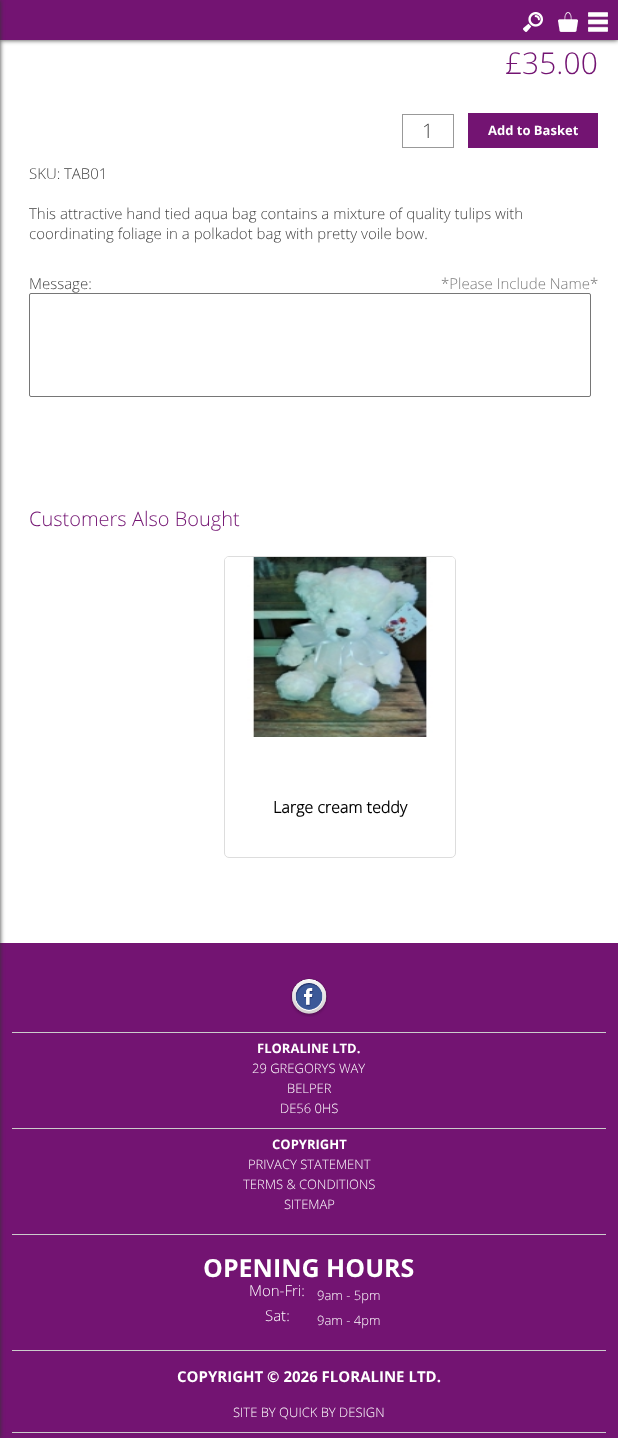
<svg xmlns="http://www.w3.org/2000/svg" width="618" height="1438" viewBox="0 0 618 1438">
  <defs>
    <clipPath id="clip1"><rect x="29" y="167" width="31" height="12"/></clipPath>
  </defs>
  <rect width="100%" height="100%" fill="rgb(115,20,114)"/>
  <rect x="0" y="40" width="618" height="903" fill="rgb(255,255,255)"/>
  <rect x="0" y="0" width="618" height="40" fill="rgb(51,51,51)" filter="blur(2.5px)"/>
  <rect x="0" y="0" width="618" height="40" fill="rgb(115,20,114)"/>
  <rect x="-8" y="0" width="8" height="1438" fill="rgb(51,51,51)" filter="blur(2.5px)"/>
  <image x="523" y="12" width="20" height="20" href="pic1.png"/>
  <image x="558" y="12" width="20" height="20" href="pic2.png"/>
  <image x="588" y="12" width="20" height="20" href="pic3.png"/>
  <text x="505" y="74" font-family="Open Sans" font-size="30" font-weight="300" fill="rgb(115,20,114)">£35.00</text>
  <rect x="402.5" y="114.5" width="51" height="33" fill="none" stroke="rgb(153,153,153)"/>
  <text x="422" y="138" font-family="Open Sans" font-size="20" font-weight="300" fill="rgb(68,68,68)">1</text>
  <rect x="468" y="113" width="130" height="35" fill="rgb(115,20,114)"/>
  <text x="488" y="135" font-family="Open Sans" font-size="13" font-weight="bold" fill="rgb(255,255,255)">Add to Basket</text>
  <g clip-path="url(#clip1)">
    <text x="29" y="179" font-family="Open Sans" font-size="15" font-weight="300" fill="rgb(68,68,68)">SKU:</text>
  </g>
  <g font-family="Open Sans" font-size="15" font-weight="300" fill="rgb(68,68,68)">
    <text x="64" y="179">TAB01</text>
    <text>
      <tspan x="29" y="219">This attractive hand tied aqua bag contains a mixture of quality tulips with</tspan>
      <tspan x="29" y="239">coordinating foliage in a polkadot bag with pretty voile bow.</tspan>
    </text>
    <text x="29" y="289">Message:</text>
  </g>
  <text x="441" y="289" font-family="Open Sans" font-size="15" font-weight="300" fill="rgb(124,124,124)">*Please Include Name*</text>
  <rect x="29.5" y="293.5" width="561" height="103" rx="1.5" fill="none" stroke="rgb(118,118,118)"/>
  <text x="29" y="526" font-family="Open Sans" font-size="20" font-weight="300" fill="rgb(115,20,114)">Customers Also Bought</text>
  <rect x="224.5" y="556.5" width="231" height="301" rx="4.5" fill="none" stroke="rgb(221,221,221)"/>
  <image x="225" y="557" width="230" height="180" href="pic4.png"/>
  <text x="273" y="813" font-family="'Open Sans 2'" font-size="16" font-weight="bold" fill="rgb(0,0,0)">Large cream teddy</text>
  <rect x="12" y="1032" width="594" height="1" fill="rgb(204,204,204)"/>
  <image x="290" y="978" width="38" height="39" href="pic5.png"/>
  <rect x="12" y="1128" width="594" height="1" fill="rgb(204,204,204)"/>
  <text x="257" y="1053" font-family="Open Sans" font-size="13" font-weight="bold" fill="rgb(255,255,255)">FLORALINE LTD.</text>
  <g font-family="Open Sans" font-size="13" font-weight="300" fill="rgb(255,255,255)">
    <text x="252" y="1073">29 GREGORYS WAY</text>
    <text x="287" y="1093">BELPER</text>
    <text x="280" y="1113">DE56 0HS</text>
  </g>
  <rect x="12" y="1234" width="594" height="1" fill="rgb(204,204,204)"/>
  <text x="272" y="1149" font-family="Open Sans" font-size="13" font-weight="bold" fill="rgb(255,255,255)">COPYRIGHT</text>
  <g font-family="Open Sans" font-size="13" font-weight="300" fill="rgb(255,255,255)">
    <text x="248" y="1169">PRIVACY STATEMENT</text>
    <text x="243" y="1189">TERMS &amp; CONDITIONS</text>
    <text x="284" y="1209">SITEMAP</text>
  </g>
  <rect x="12" y="1350" width="594" height="1" fill="rgb(204,204,204)"/>
  <text x="203" y="1277" font-family="Open Sans" font-size="25" font-weight="bold" fill="rgb(255,255,255)">OPENING HOURS</text>
  <text x="249" y="1296" font-family="Open Sans" font-size="15" font-weight="300" fill="rgb(255,255,255)">Mon-Fri:</text>
  <text x="317" y="1300" font-family="Open Sans" font-size="13" font-weight="300" fill="rgb(255,255,255)">9am - 5pm</text>
  <text x="265" y="1321" font-family="Open Sans" font-size="15" font-weight="300" fill="rgb(255,255,255)">Sat:</text>
  <text x="317" y="1325" font-family="Open Sans" font-size="13" font-weight="300" fill="rgb(255,255,255)">9am - 4pm</text>
  <text x="177" y="1382" font-family="Open Sans" font-size="15" font-weight="bold" fill="rgb(255,255,255)">COPYRIGHT © 2026 FLORALINE LTD.</text>
  <rect x="12" y="1432" width="594" height="1" fill="rgb(204,204,204)"/>
  <text x="233" y="1417" font-family="Open Sans" font-size="13" font-weight="300" fill="rgb(255,255,255)">SITE BY QUICK BY DESIGN</text>
</svg>
